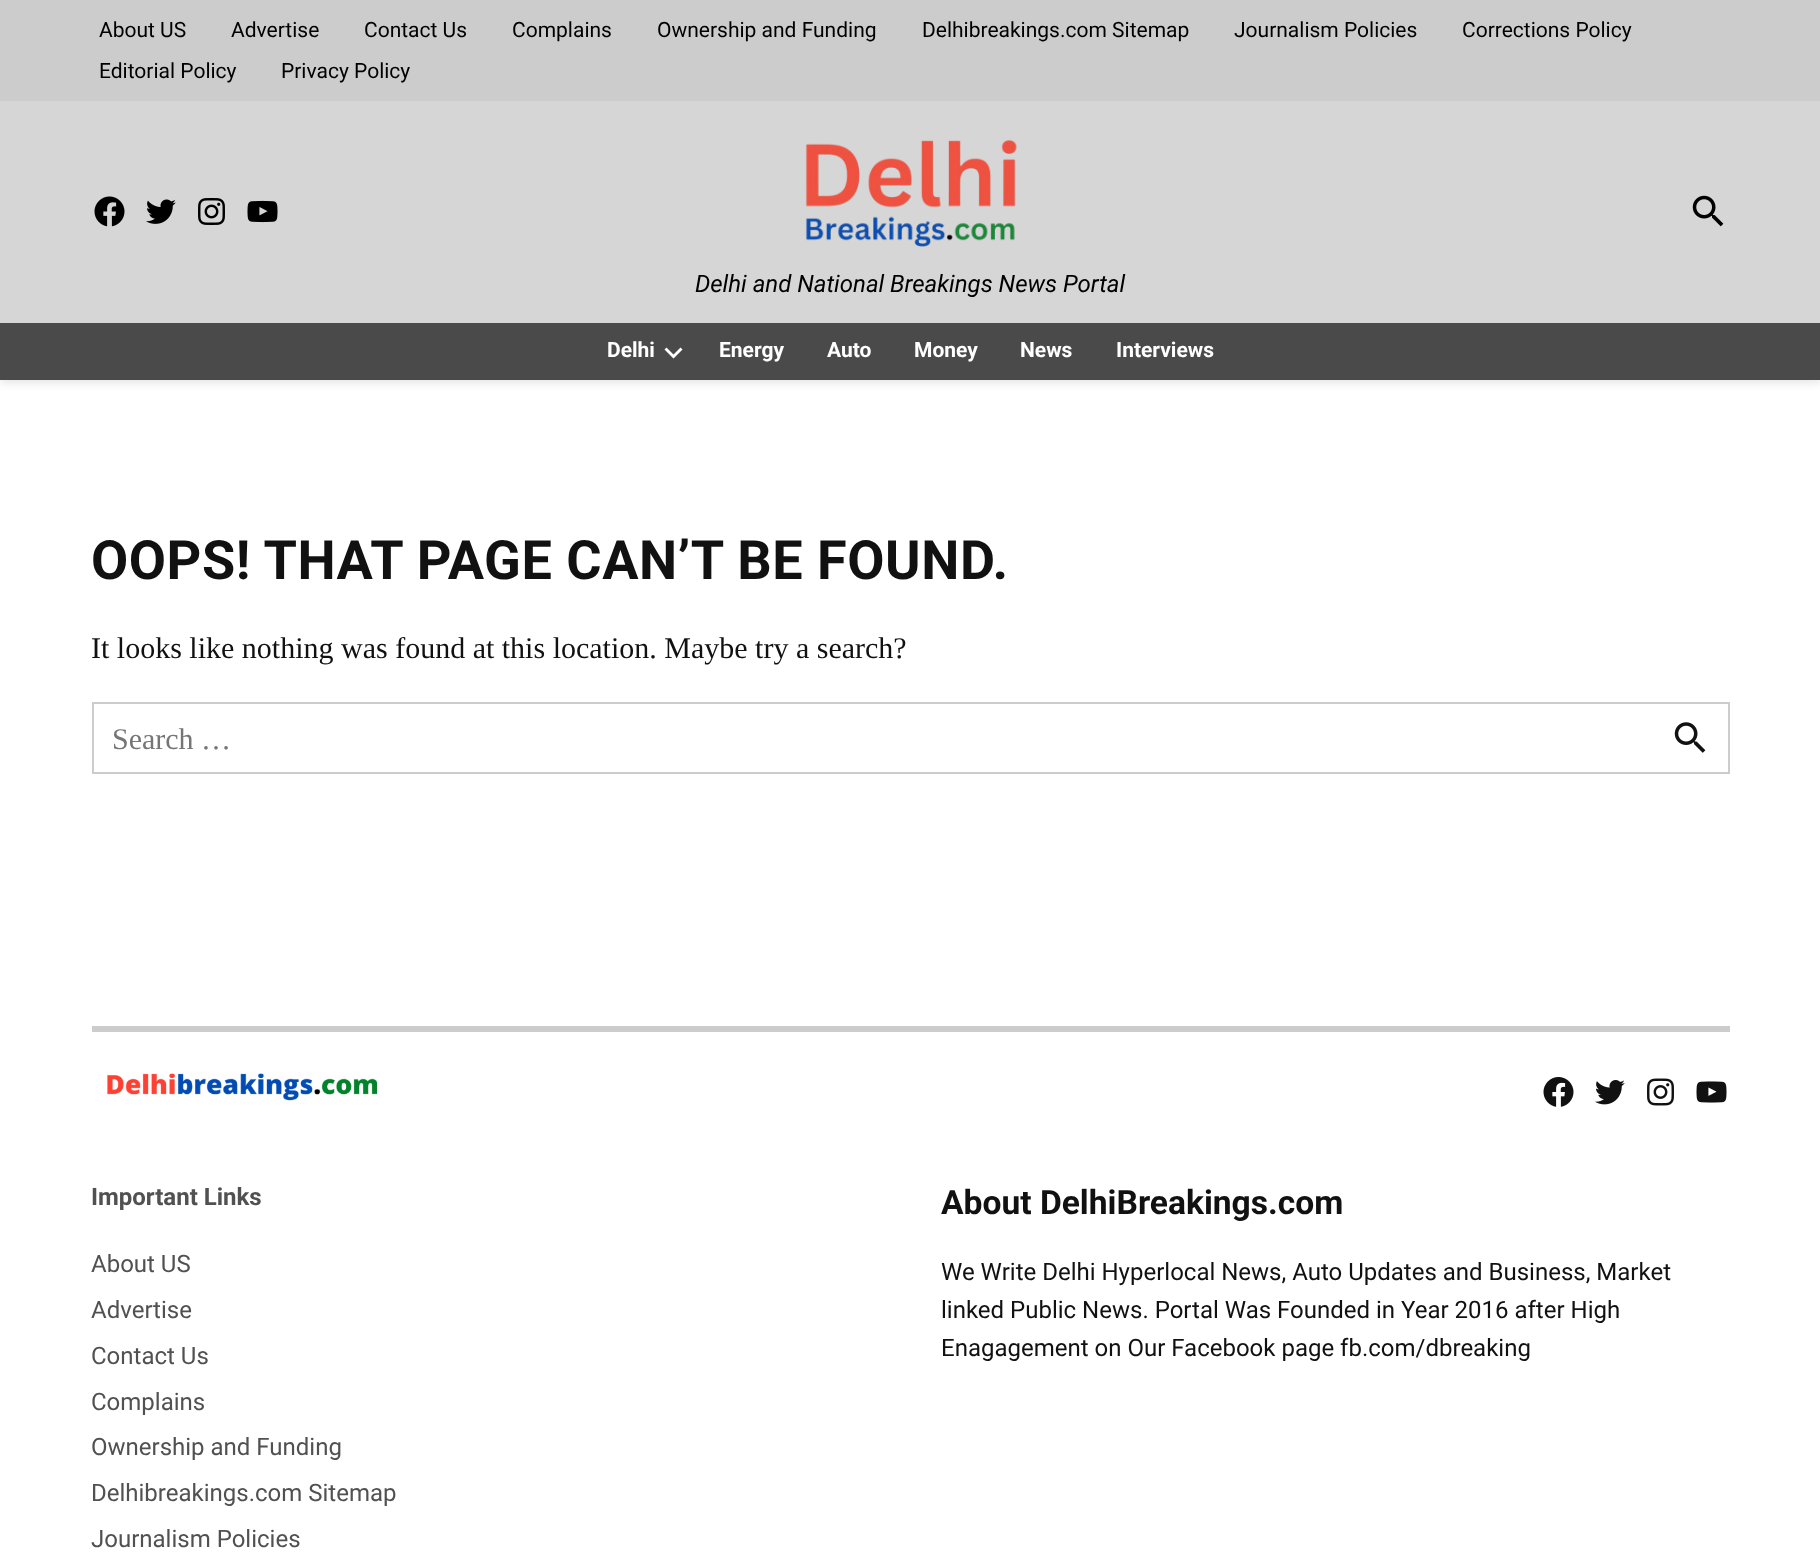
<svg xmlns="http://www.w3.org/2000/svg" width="1820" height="1554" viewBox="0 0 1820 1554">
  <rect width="100%" height="100%" fill="rgb(255,255,255)"/>
  <rect x="0" y="3" width="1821" height="380" fill="rgba(0,0,0,0.1)" filter="blur(4px)"/>
  <rect x="0" y="0" width="1820" height="101" fill="rgb(204,204,204)"/>
  <g font-family="Roboto" font-size="21" fill="rgb(0,0,0)">
    <text x="99" y="37">About US</text>
    <text x="231" y="37">Advertise</text>
    <text x="364" y="37">Contact Us</text>
    <text x="512" y="37">Complains</text>
    <text x="657" y="37">Ownership and Funding</text>
    <text x="922" y="37">Delhibreakings.com Sitemap</text>
    <text x="1234" y="37">Journalism Policies</text>
    <text x="1462" y="37">Corrections Policy</text>
    <text x="99" y="78">Editorial Policy</text>
    <text x="281" y="78">Privacy Policy</text>
  </g>
  <rect x="0" y="101" width="1820" height="222" fill="rgb(214,214,214)"/>
  <image x="94" y="196" width="31" height="31" href="pic1.png"/>
  <image x="146" y="199" width="30" height="25" href="pic2.png"/>
  <image x="198" y="198" width="27" height="27" href="pic3.png"/>
  <image x="247" y="200" width="31" height="23" href="pic4.png"/>
  <image x="1692" y="195" width="32" height="32" href="pic5.png"/>
  <image x="805" y="139" width="212" height="108" href="pic6.png"/>
  <text x="695" y="292" font-family="Roboto" font-size="24" font-style="italic" fill="rgb(0,0,0)">Delhi and National Breakings News Portal</text>
  <rect x="0" y="323" width="1820" height="57" fill="rgb(74,74,74)"/>
  <text x="607" y="357" font-family="Roboto" font-size="21" font-weight="bold" fill="rgb(255,255,255)">Delhi</text>
  <path d="M666.5 347.5L673.5 354.5L680.5 347.5L682.5 349.5L673.5 358.5L664.5 349.5Z" fill="rgb(255,255,255)"/>
  <g font-family="Roboto" font-size="21" font-weight="bold" fill="rgb(255,255,255)">
    <text x="719" y="357">Energy</text>
    <text x="827" y="357">Auto</text>
    <text x="914" y="357">Money</text>
    <text x="1020" y="357">News</text>
    <text x="1116" y="357">Interviews</text>
  </g>
  <text x="91" y="579" font-family="Roboto" font-size="54" font-weight="bold" letter-spacing="0.55" fill="rgb(17,17,17)">OOPS! THAT PAGE CAN’T BE FOUND.</text>
  <text x="91" y="658" font-family="Liberation Serif" font-size="30" fill="rgb(17,17,17)">It looks like nothing was found at this location. Maybe try a search?</text>
  <rect x="93" y="703" width="1636" height="70" fill="none" stroke="rgb(204,204,204)" stroke-width="2"/>
  <text x="112" y="749" font-family="Liberation Serif" font-size="30" fill="rgb(117,117,117)">Search …</text>
  <image x="1674" y="722" width="32" height="31" href="pic7.png"/>
  <rect x="92" y="1026" width="1638" height="6" fill="rgb(204,204,204)"/>
  <image x="107" y="1073" width="270" height="28" href="pic8.png"/>
  <image x="1543" y="1077" width="31" height="30" href="pic9.png"/>
  <image x="1595" y="1080" width="30" height="25" href="pic10.png"/>
  <image x="1647" y="1078" width="27" height="28" href="pic11.png"/>
  <image x="1696" y="1081" width="31" height="22" href="pic12.png"/>
  <text x="91" y="1205" font-family="Roboto" font-size="24" font-weight="bold" fill="rgb(81,81,81)">Important Links</text>
  <g font-family="Roboto" font-size="24" fill="rgb(81,81,81)">
    <text>
      <tspan x="91" y="1272">About US</tspan>
      <tspan x="91" y="1318">Advertise</tspan>
      <tspan x="91" y="1364">Contact Us</tspan>
      <tspan x="91" y="1410">Complains</tspan>
      <tspan x="91" y="1455">Ownership and Funding</tspan>
      <tspan x="91" y="1501">Delhibreakings.com Sitemap</tspan>
      <tspan x="91" y="1547">Journalism Policies</tspan>
    </text>
  </g>
  <text x="941" y="1214" font-family="Roboto" font-size="33.6" font-weight="bold" fill="rgb(17,17,17)">About DelhiBreakings.com</text>
  <g font-family="Roboto" font-size="24" fill="rgb(17,17,17)">
    <text>
      <tspan x="941" y="1280">We Write Delhi Hyperlocal News, Auto Updates and Business, Market</tspan>
      <tspan x="941" y="1318">linked Public News. Portal Was Founded in Year 2016 after High</tspan>
      <tspan x="941" y="1356">Enagagement on Our Facebook page fb.com/dbreaking</tspan>
    </text>
  </g>
</svg>
